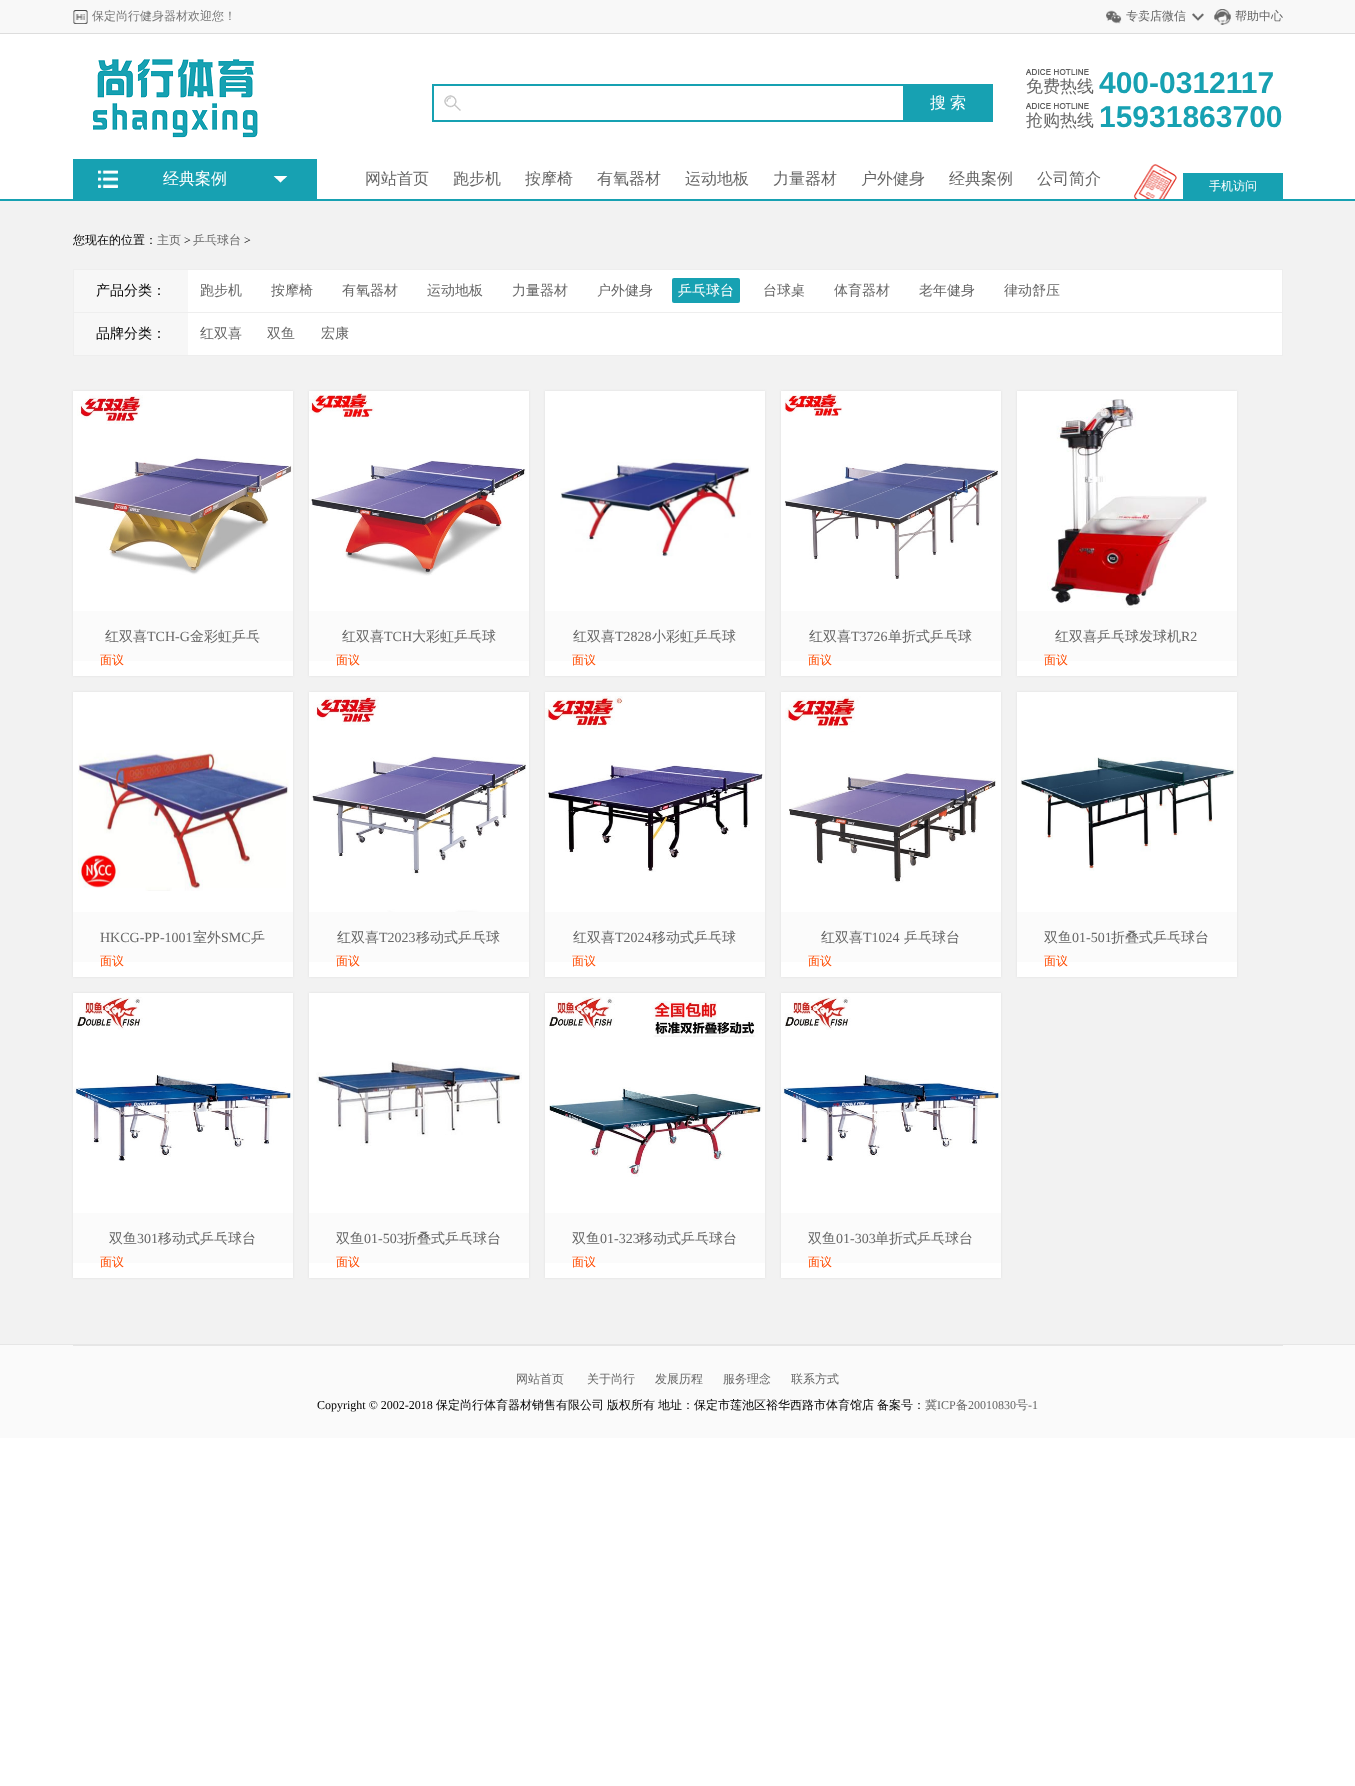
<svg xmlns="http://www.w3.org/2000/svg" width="1355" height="1786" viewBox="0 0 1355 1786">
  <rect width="100%" height="100%" fill="rgb(255,255,255)"/>
  <rect x="0" y="0" width="1355" height="33" fill="rgb(248,248,248)"/>
  <rect x="0" y="33" width="1355" height="1" fill="rgb(221,221,221)"/>
  <image x="73" y="10" width="15" height="14" href="pic1.png"/>
  <text x="92" y="20" font-family="WenQuanYi Zen Hei" font-size="12" font-weight="500" fill="rgb(119,119,119)">保定尚行健身器材欢迎您！</text>
  <image x="1106" y="10" width="16" height="14" href="pic2.png"/>
  <image x="1192" y="13" width="12" height="8" href="pic3.png"/>
  <text x="1126" y="20" font-family="WenQuanYi Zen Hei" font-size="12" font-weight="500" fill="rgb(102,102,102)">专卖店微信</text>
  <image x="1214" y="9" width="17" height="16" href="pic4.png"/>
  <text x="1235" y="20" font-family="WenQuanYi Zen Hei" font-size="12" font-weight="500" fill="rgb(102,102,102)">帮助中心</text>
  <rect x="73" y="159" width="244" height="40" fill="rgb(23,161,178)"/>
  <image x="98" y="170" width="20" height="18" href="pic5.png"/>
  <image x="273" y="176" width="15" height="7" href="pic6.png"/>
  <text x="163" y="184" font-family="WenQuanYi Zen Hei" font-size="16" font-weight="500" fill="rgb(255,255,255)">经典案例</text>
  <rect x="0" y="199" width="1355" height="2" fill="rgb(23,161,178)"/>
  <image x="93" y="59" width="165" height="79" href="pic7.png"/>
  <rect x="433" y="85" width="559" height="36" fill="none" stroke="rgb(23,161,178)" stroke-width="2"/>
  <image x="444" y="95" width="17" height="16" href="pic8.png"/>
  <rect x="903" y="86" width="88" height="34" fill="rgb(23,161,178)"/>
  <g font-family="WenQuanYi Zen Hei" font-size="16" font-weight="500" fill="rgb(255,255,255)">
    <text x="930" y="108">搜</text>
    <text x="950" y="108">索</text>
  </g>
  <image x="1026" y="69" width="63" height="6" href="pic9.png"/>
  <text x="1026" y="92" font-family="WenQuanYi Zen Hei" font-size="17" font-weight="500" fill="rgb(102,102,102)">免费热线</text>
  <text x="1099" y="93" font-family="Liberation Sans" font-size="30" font-weight="bold" fill="rgb(23,161,178)">400-0312117</text>
  <image x="1026" y="103" width="63" height="6" href="pic9.png"/>
  <text x="1026" y="126" font-family="WenQuanYi Zen Hei" font-size="17" font-weight="500" fill="rgb(102,102,102)">抢购热线</text>
  <text x="1099" y="127" font-family="Liberation Sans" font-size="30" font-weight="bold" fill="rgb(23,161,178)">15931863700</text>
  <g font-family="WenQuanYi Zen Hei" font-size="16" font-weight="500" fill="rgb(102,102,102)">
    <text x="365" y="184">网站首页</text>
    <text x="453" y="184">跑步机</text>
    <text x="525" y="184">按摩椅</text>
    <text x="597" y="184">有氧器材</text>
    <text x="685" y="184">运动地板</text>
    <text x="773" y="184">力量器材</text>
    <text x="861" y="184">户外健身</text>
    <text x="949" y="184">经典案例</text>
    <text x="1037" y="184">公司简介</text>
  </g>
  <image x="1133" y="164" width="44" height="35" href="pic10.png"/>
  <rect x="1183" y="173" width="100" height="26" fill="rgb(23,161,178)"/>
  <text x="1209" y="190" font-family="WenQuanYi Zen Hei" font-size="12" font-weight="500" fill="rgb(255,255,255)">手机访问</text>
  <rect x="0" y="201" width="1355" height="1143" fill="rgb(242,242,242)"/>
  <text x="73" y="244" font-family="WenQuanYi Zen Hei" font-size="12" font-weight="500" fill="rgb(0,0,0)">您现在的位置：</text>
  <text x="157" y="244" font-family="WenQuanYi Zen Hei" font-size="12" font-weight="500" fill="rgb(102,102,102)">主页</text>
  <text x="184" y="244" font-family="Liberation Serif" font-size="12" fill="rgb(0,0,0)">&gt;</text>
  <text x="193" y="244" font-family="WenQuanYi Zen Hei" font-size="12" font-weight="500" fill="rgb(102,102,102)">乒乓球台</text>
  <text x="244" y="244" font-family="Liberation Serif" font-size="12" fill="rgb(0,0,0)">&gt;</text>
  <rect x="188" y="270" width="1094" height="85" fill="rgb(255,255,255)"/>
  <rect x="73" y="269" width="1210" height="1" fill="rgb(238,238,238)"/>
  <rect x="1282" y="269" width="1" height="87" fill="rgb(238,238,238)"/>
  <rect x="73" y="355" width="1210" height="1" fill="rgb(238,238,238)"/>
  <rect x="73" y="269" width="1" height="87" fill="rgb(238,238,238)"/>
  <rect x="74" y="270" width="114" height="42" fill="rgb(247,247,247)"/>
  <text x="96" y="295" font-family="WenQuanYi Zen Hei" font-size="14" font-weight="500" fill="rgb(0,0,0)">产品分类：</text>
  <rect x="73" y="312" width="1210" height="1" fill="rgb(238,238,238)"/>
  <g font-family="WenQuanYi Zen Hei" font-size="14" font-weight="500" fill="rgb(102,102,102)">
    <text x="200" y="295">跑步机</text>
    <text x="271" y="295">按摩椅</text>
    <text x="342" y="295">有氧器材</text>
    <text x="427" y="295">运动地板</text>
    <text x="512" y="295">力量器材</text>
    <text x="597" y="295">户外健身</text>
  </g>
  <rect x="672" y="278" width="68" height="25" rx="2" fill="rgb(23,161,178)"/>
  <text x="678" y="295" font-family="WenQuanYi Zen Hei" font-size="14" font-weight="500" fill="rgb(255,255,255)">乒乓球台</text>
  <g font-family="WenQuanYi Zen Hei" font-size="14" font-weight="500" fill="rgb(102,102,102)">
    <text x="763" y="295">台球桌</text>
    <text x="834" y="295">体育器材</text>
    <text x="919" y="295">老年健身</text>
    <text x="1004" y="295">律动舒压</text>
  </g>
  <rect x="74" y="313" width="114" height="42" fill="rgb(247,247,247)"/>
  <text x="96" y="338" font-family="WenQuanYi Zen Hei" font-size="14" font-weight="500" fill="rgb(0,0,0)">品牌分类：</text>
  <g font-family="WenQuanYi Zen Hei" font-size="14" font-weight="500" fill="rgb(102,102,102)">
    <text x="200" y="338">红双喜</text>
    <text x="267" y="338">双鱼</text>
    <text x="321" y="338">宏康</text>
  </g>
  <rect x="73" y="391" width="220" height="285" fill="rgb(221,221,221)" filter="blur(1px)"/>
  <rect x="73" y="391" width="220" height="285" fill="rgb(255,255,255)"/>
  <image x="74" y="395" width="219" height="180" href="pic11.png"/>
  <rect x="73" y="611" width="220" height="50" fill="rgb(251,251,251)"/>
  <text x="105" y="641" font-family="WenQuanYi Zen Hei" font-size="14" font-weight="500" fill="rgb(102,102,102)">红双喜</text>
  <text x="147" y="641" font-family="Liberation Serif" font-size="14" fill="rgb(102,102,102)">TCH-G</text>
  <text x="190" y="641" font-family="WenQuanYi Zen Hei" font-size="14" font-weight="500" fill="rgb(102,102,102)">金彩虹乒乓</text>
  <text x="100" y="664" font-family="WenQuanYi Zen Hei" font-size="12" font-weight="500" fill="rgb(255,75,0)">面议</text>
  <rect x="309" y="391" width="220" height="285" fill="rgb(221,221,221)" filter="blur(1px)"/>
  <rect x="309" y="391" width="220" height="285" fill="rgb(255,255,255)"/>
  <image x="309" y="391" width="217" height="185" href="pic12.png"/>
  <rect x="309" y="611" width="220" height="50" fill="rgb(251,251,251)"/>
  <text x="342" y="641" font-family="WenQuanYi Zen Hei" font-size="14" font-weight="500" fill="rgb(102,102,102)">红双喜</text>
  <text x="384" y="641" font-family="Liberation Serif" font-size="14" fill="rgb(102,102,102)">TCH</text>
  <text x="412" y="641" font-family="WenQuanYi Zen Hei" font-size="14" font-weight="500" fill="rgb(102,102,102)">大彩虹乒乓球</text>
  <text x="336" y="664" font-family="WenQuanYi Zen Hei" font-size="12" font-weight="500" fill="rgb(255,75,0)">面议</text>
  <rect x="545" y="391" width="220" height="285" fill="rgb(221,221,221)" filter="blur(1px)"/>
  <rect x="545" y="391" width="220" height="285" fill="rgb(255,255,255)"/>
  <image x="560" y="459" width="191" height="98" href="pic13.png"/>
  <rect x="545" y="611" width="220" height="50" fill="rgb(251,251,251)"/>
  <text x="573" y="641" font-family="WenQuanYi Zen Hei" font-size="14" font-weight="500" fill="rgb(102,102,102)">红双喜</text>
  <text x="615" y="641" font-family="Liberation Serif" font-size="14" fill="rgb(102,102,102)">T2828</text>
  <text x="652" y="641" font-family="WenQuanYi Zen Hei" font-size="14" font-weight="500" fill="rgb(102,102,102)">小彩虹乒乓球</text>
  <text x="572" y="664" font-family="WenQuanYi Zen Hei" font-size="12" font-weight="500" fill="rgb(255,75,0)">面议</text>
  <rect x="781" y="391" width="220" height="285" fill="rgb(221,221,221)" filter="blur(1px)"/>
  <rect x="781" y="391" width="220" height="285" fill="rgb(255,255,255)"/>
  <image x="784" y="391" width="214" height="188" href="pic14.png"/>
  <rect x="781" y="611" width="220" height="50" fill="rgb(251,251,251)"/>
  <text x="809" y="641" font-family="WenQuanYi Zen Hei" font-size="14" font-weight="500" fill="rgb(102,102,102)">红双喜</text>
  <text x="851" y="641" font-family="Liberation Serif" font-size="14" fill="rgb(102,102,102)">T3726</text>
  <text x="888" y="641" font-family="WenQuanYi Zen Hei" font-size="14" font-weight="500" fill="rgb(102,102,102)">单折式乒乓球</text>
  <text x="808" y="664" font-family="WenQuanYi Zen Hei" font-size="12" font-weight="500" fill="rgb(255,75,0)">面议</text>
  <rect x="1017" y="391" width="220" height="285" fill="rgb(221,221,221)" filter="blur(1px)"/>
  <rect x="1017" y="391" width="220" height="285" fill="rgb(255,255,255)"/>
  <image x="1047" y="399" width="160" height="209" href="pic15.png"/>
  <rect x="1017" y="611" width="220" height="50" fill="rgb(251,251,251)"/>
  <text x="1055" y="641" font-family="WenQuanYi Zen Hei" font-size="14" font-weight="500" fill="rgb(102,102,102)">红双喜乒乓球发球机</text>
  <text x="1181" y="641" font-family="Liberation Serif" font-size="14" fill="rgb(102,102,102)">R2</text>
  <text x="1044" y="664" font-family="WenQuanYi Zen Hei" font-size="12" font-weight="500" fill="rgb(255,75,0)">面议</text>
  <rect x="73" y="692" width="220" height="285" fill="rgb(221,221,221)" filter="blur(1px)"/>
  <rect x="73" y="692" width="220" height="285" fill="rgb(255,255,255)"/>
  <image x="78" y="750" width="211" height="141" href="pic16.png"/>
  <rect x="73" y="912" width="220" height="50" fill="rgb(251,251,251)"/>
  <text x="100" y="942" font-family="Liberation Serif" font-size="14" fill="rgb(102,102,102)">HKCG-PP-1001</text>
  <text x="193" y="942" font-family="WenQuanYi Zen Hei" font-size="14" font-weight="500" fill="rgb(102,102,102)">室外</text>
  <text x="221" y="942" font-family="Liberation Serif" font-size="14" fill="rgb(102,102,102)">SMC</text>
  <text x="251" y="942" font-family="WenQuanYi Zen Hei" font-size="14" font-weight="500" fill="rgb(102,102,102)">乒</text>
  <text x="100" y="965" font-family="WenQuanYi Zen Hei" font-size="12" font-weight="500" fill="rgb(255,75,0)">面议</text>
  <rect x="309" y="692" width="220" height="285" fill="rgb(221,221,221)" filter="blur(1px)"/>
  <rect x="309" y="692" width="220" height="285" fill="rgb(255,255,255)"/>
  <image x="311" y="696" width="215" height="216" href="pic17.png"/>
  <rect x="309" y="912" width="220" height="50" fill="rgb(251,251,251)"/>
  <text x="337" y="942" font-family="WenQuanYi Zen Hei" font-size="14" font-weight="500" fill="rgb(102,102,102)">红双喜</text>
  <text x="379" y="942" font-family="Liberation Serif" font-size="14" fill="rgb(102,102,102)">T2023</text>
  <text x="416" y="942" font-family="WenQuanYi Zen Hei" font-size="14" font-weight="500" fill="rgb(102,102,102)">移动式乒乓球</text>
  <text x="336" y="965" font-family="WenQuanYi Zen Hei" font-size="12" font-weight="500" fill="rgb(255,75,0)">面议</text>
  <rect x="545" y="692" width="220" height="285" fill="rgb(221,221,221)" filter="blur(1px)"/>
  <rect x="545" y="692" width="220" height="285" fill="rgb(255,255,255)"/>
  <image x="545" y="696" width="220" height="176" href="pic18.png"/>
  <rect x="545" y="912" width="220" height="50" fill="rgb(251,251,251)"/>
  <text x="573" y="942" font-family="WenQuanYi Zen Hei" font-size="14" font-weight="500" fill="rgb(102,102,102)">红双喜</text>
  <text x="615" y="942" font-family="Liberation Serif" font-size="14" fill="rgb(102,102,102)">T2024</text>
  <text x="652" y="942" font-family="WenQuanYi Zen Hei" font-size="14" font-weight="500" fill="rgb(102,102,102)">移动式乒乓球</text>
  <text x="572" y="965" font-family="WenQuanYi Zen Hei" font-size="12" font-weight="500" fill="rgb(255,75,0)">面议</text>
  <rect x="781" y="692" width="220" height="285" fill="rgb(221,221,221)" filter="blur(1px)"/>
  <rect x="781" y="692" width="220" height="285" fill="rgb(255,255,255)"/>
  <image x="785" y="696" width="211" height="187" href="pic19.png"/>
  <rect x="781" y="912" width="220" height="50" fill="rgb(251,251,251)"/>
  <text x="821" y="942" font-family="WenQuanYi Zen Hei" font-size="14" font-weight="500" fill="rgb(102,102,102)">红双喜</text>
  <text x="863" y="942" font-family="Liberation Serif" font-size="14" fill="rgb(102,102,102)">T1024</text>
  <text x="904" y="942" font-family="WenQuanYi Zen Hei" font-size="14" font-weight="500" fill="rgb(102,102,102)">乒乓球台</text>
  <text x="808" y="965" font-family="WenQuanYi Zen Hei" font-size="12" font-weight="500" fill="rgb(255,75,0)">面议</text>
  <rect x="1017" y="692" width="220" height="285" fill="rgb(221,221,221)" filter="blur(1px)"/>
  <rect x="1017" y="692" width="220" height="285" fill="rgb(255,255,255)"/>
  <image x="1020" y="757" width="217" height="114" href="pic20.png"/>
  <rect x="1017" y="912" width="220" height="50" fill="rgb(251,251,251)"/>
  <text x="1044" y="942" font-family="WenQuanYi Zen Hei" font-size="14" font-weight="500" fill="rgb(102,102,102)">双鱼</text>
  <text x="1072" y="942" font-family="Liberation Serif" font-size="14" fill="rgb(102,102,102)">01-501</text>
  <text x="1111" y="942" font-family="WenQuanYi Zen Hei" font-size="14" font-weight="500" fill="rgb(102,102,102)">折叠式乒乓球台</text>
  <text x="1044" y="965" font-family="WenQuanYi Zen Hei" font-size="12" font-weight="500" fill="rgb(255,75,0)">面议</text>
  <rect x="73" y="993" width="220" height="285" fill="rgb(221,221,221)" filter="blur(1px)"/>
  <rect x="73" y="993" width="220" height="285" fill="rgb(255,255,255)"/>
  <image x="73" y="997" width="220" height="164" href="pic21.png"/>
  <rect x="73" y="1213" width="220" height="50" fill="rgb(251,251,251)"/>
  <text x="109" y="1243" font-family="WenQuanYi Zen Hei" font-size="14" font-weight="500" fill="rgb(102,102,102)">双鱼</text>
  <text x="137" y="1243" font-family="Liberation Serif" font-size="14" fill="rgb(102,102,102)">301</text>
  <text x="158" y="1243" font-family="WenQuanYi Zen Hei" font-size="14" font-weight="500" fill="rgb(102,102,102)">移动式乒乓球台</text>
  <text x="100" y="1266" font-family="WenQuanYi Zen Hei" font-size="12" font-weight="500" fill="rgb(255,75,0)">面议</text>
  <rect x="309" y="993" width="220" height="285" fill="rgb(221,221,221)" filter="blur(1px)"/>
  <rect x="309" y="993" width="220" height="285" fill="rgb(255,255,255)"/>
  <image x="316" y="1061" width="206" height="85" href="pic22.png"/>
  <rect x="309" y="1213" width="220" height="50" fill="rgb(251,251,251)"/>
  <text x="336" y="1243" font-family="WenQuanYi Zen Hei" font-size="14" font-weight="500" fill="rgb(102,102,102)">双鱼</text>
  <text x="364" y="1243" font-family="Liberation Serif" font-size="14" fill="rgb(102,102,102)">01-503</text>
  <text x="403" y="1243" font-family="WenQuanYi Zen Hei" font-size="14" font-weight="500" fill="rgb(102,102,102)">折叠式乒乓球台</text>
  <text x="336" y="1266" font-family="WenQuanYi Zen Hei" font-size="12" font-weight="500" fill="rgb(255,75,0)">面议</text>
  <rect x="545" y="993" width="220" height="285" fill="rgb(221,221,221)" filter="blur(1px)"/>
  <rect x="545" y="993" width="220" height="285" fill="rgb(255,255,255)"/>
  <image x="549" y="997" width="213" height="180" href="pic23.png"/>
  <rect x="545" y="1213" width="220" height="50" fill="rgb(251,251,251)"/>
  <text x="572" y="1243" font-family="WenQuanYi Zen Hei" font-size="14" font-weight="500" fill="rgb(102,102,102)">双鱼</text>
  <text x="600" y="1243" font-family="Liberation Serif" font-size="14" fill="rgb(102,102,102)">01-323</text>
  <text x="639" y="1243" font-family="WenQuanYi Zen Hei" font-size="14" font-weight="500" fill="rgb(102,102,102)">移动式乒乓球台</text>
  <text x="572" y="1266" font-family="WenQuanYi Zen Hei" font-size="12" font-weight="500" fill="rgb(255,75,0)">面议</text>
  <rect x="781" y="993" width="220" height="285" fill="rgb(221,221,221)" filter="blur(1px)"/>
  <rect x="781" y="993" width="220" height="285" fill="rgb(255,255,255)"/>
  <image x="781" y="997" width="220" height="164" href="pic24.png"/>
  <rect x="781" y="1213" width="220" height="50" fill="rgb(251,251,251)"/>
  <text x="808" y="1243" font-family="WenQuanYi Zen Hei" font-size="14" font-weight="500" fill="rgb(102,102,102)">双鱼</text>
  <text x="836" y="1243" font-family="Liberation Serif" font-size="14" fill="rgb(102,102,102)">01-303</text>
  <text x="875" y="1243" font-family="WenQuanYi Zen Hei" font-size="14" font-weight="500" fill="rgb(102,102,102)">单折式乒乓球台</text>
  <text x="808" y="1266" font-family="WenQuanYi Zen Hei" font-size="12" font-weight="500" fill="rgb(255,75,0)">面议</text>
  <rect x="0" y="1345" width="1355" height="93" fill="rgb(250,250,250)"/>
  <rect x="0" y="1344" width="1355" height="1" fill="rgb(230,230,230)"/>
  <rect x="73" y="1345" width="1210" height="1" fill="rgb(230,230,230)"/>
  <g font-family="WenQuanYi Zen Hei" font-size="12" font-weight="500" fill="rgb(102,102,102)">
    <text x="516" y="1383">网站首页</text>
    <text x="587" y="1383">关于尚行</text>
    <text x="655" y="1383">发展历程</text>
    <text x="723" y="1383">服务理念</text>
    <text x="791" y="1383">联系方式</text>
  </g>
  <text x="317" y="1409" font-family="Liberation Serif" font-size="12" fill="rgb(0,0,0)">Copyright © 2002-2018</text>
  <g font-family="WenQuanYi Zen Hei" font-size="12" font-weight="500" fill="rgb(0,0,0)">
    <text x="436" y="1409">保定尚行体育器材销售有限公司</text>
    <text x="607" y="1409">版权所有</text>
    <text x="658" y="1409">地址：保定市莲池区裕华西路市体育馆店</text>
    <text x="877" y="1409">备案号：</text>
  </g>
  <text x="925" y="1409" font-family="WenQuanYi Zen Hei" font-size="12" font-weight="500" fill="rgb(102,102,102)">冀</text>
  <text x="937" y="1409" font-family="Liberation Serif" font-size="12" fill="rgb(102,102,102)">ICP</text>
  <text x="956" y="1409" font-family="WenQuanYi Zen Hei" font-size="12" font-weight="500" fill="rgb(102,102,102)">备</text>
  <text x="968" y="1409" font-family="Liberation Serif" font-size="12" fill="rgb(102,102,102)">20010830</text>
  <text x="1016" y="1409" font-family="WenQuanYi Zen Hei" font-size="12" font-weight="500" fill="rgb(102,102,102)">号</text>
  <text x="1028" y="1409" font-family="Liberation Serif" font-size="12" fill="rgb(102,102,102)">-1</text>
</svg>
